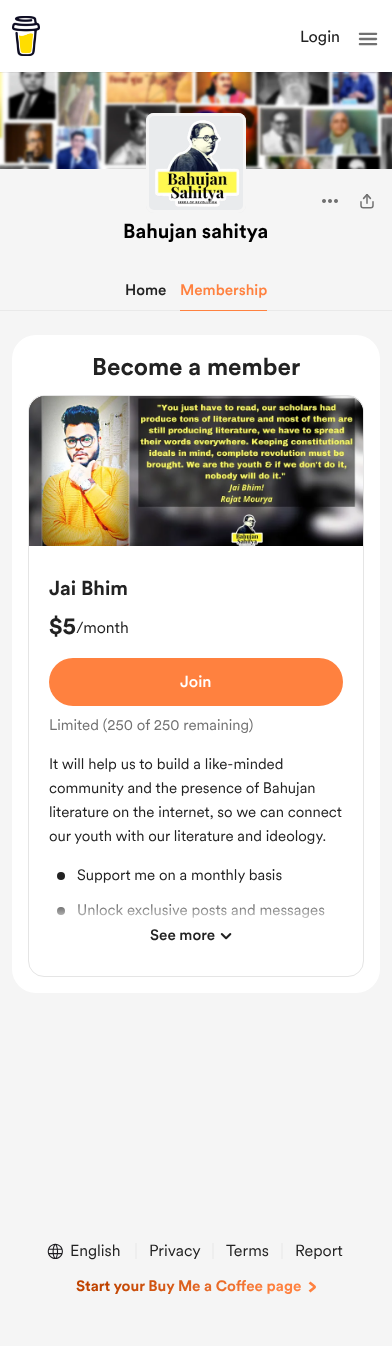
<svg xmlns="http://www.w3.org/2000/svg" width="392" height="1348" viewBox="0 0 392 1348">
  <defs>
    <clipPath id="clip1"><rect x="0" y="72" width="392" height="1"/></clipPath>
    <linearGradient id="g1" gradientUnits="userSpaceOnUse" x1="91" y1="1241" x2="301" y2="1331"><stop offset="0.14" stop-color="rgb(191,67,0)"/><stop offset="0.82" stop-color="rgb(255,129,63)"/></linearGradient>
    <linearGradient id="g2" gradientUnits="userSpaceOnUse" x1="196" y1="896" x2="196" y2="956"><stop offset="0" stop-color="rgb(255,255,255)" stop-opacity="0"/><stop offset="0.5" stop-color="rgb(255,255,255)"/></linearGradient>
  </defs>
  <rect width="100%" height="100%" fill="rgb(255,255,255)"/>
  <image x="0" y="72" width="392" height="97" href="pic3.png"/>
  <g clip-path="url(#clip1)">
    <rect x="0" y="1" width="392" height="72" fill="rgba(0,0,0,0.06)" filter="blur(0.5px)"/>
  </g>
  <image x="12" y="16" width="28" height="40" href="pic1.png"/>
  <text x="300" y="42" font-family="'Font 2'" font-size="16" fill="rgb(34,34,34)">Login</text>
  <image x="358" y="32" width="20" height="14" href="pic2.png"/>
  <rect x="0" y="169" width="392" height="1177" fill="rgb(245,245,245)"/>
  <image x="322" y="199" width="16" height="4" href="pic4.png"/>
  <image x="360" y="194" width="14" height="15" href="pic5.png"/>
  <image x="146" y="113" width="100" height="100" href="pic6.png"/>
  <rect x="147.5" y="114.5" width="97" height="97" rx="6.5" fill="none" stroke="rgb(245,245,245)" stroke-width="3"/>
  <image x="155" y="120" width="84" height="87" href="pic7.png"/>
  <text x="123" y="238" font-family="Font" font-size="20" font-weight="bold" fill="rgb(0,0,0)">Bahujan sahitya</text>
  <text x="125" y="295" font-family="Font" font-size="15" font-weight="500" fill="rgb(34,34,34)">Home</text>
  <text x="180" y="295" font-family="Font" font-size="15" font-weight="500" fill="rgb(255,129,63)">Membership</text>
  <rect x="0" y="310" width="392" height="1" fill="rgb(233,233,233)"/>
  <rect x="180" y="310" width="87" height="1" fill="rgb(255,129,63)"/>
  <rect x="12" y="335" width="368" height="658" rx="24" fill="rgb(255,255,255)"/>
  <text x="92" y="375" font-family="Font" font-size="24" font-weight="bold" fill="rgb(34,34,34)">Become a member</text>
  <rect x="28.5" y="395.5" width="335" height="581" rx="15.5" fill="none" stroke="rgb(229,229,229)"/>
  <image x="29" y="396" width="334" height="150" href="pic8.png"/>
  <image x="29" y="396" width="334" height="16" href="pic9.png"/>
  <text x="49" y="595" font-family="Font" font-size="20" font-weight="bold" fill="rgb(34,34,34)">Jai Bhim</text>
  <text x="49" y="634" font-family="Font" font-size="24" font-weight="bold" fill="rgb(34,34,34)">$5</text>
  <text x="76" y="633" font-family="Font" font-size="16" fill="rgb(34,34,34)">/month</text>
  <rect x="49" y="658" width="294" height="48" rx="24" fill="rgb(255,129,63)"/>
  <text x="180" y="687" font-family="Font" font-size="16" font-weight="500" fill="rgb(255,255,255)">Join</text>
  <text x="49" y="730" font-family="Font" font-size="15" fill="rgb(113,113,113)">Limited (250 of 250 remaining)</text>
  <g font-family="Font" font-size="15" fill="rgb(34,34,34)">
    <text>
      <tspan x="49" y="769">It will help us to build a like-minded</tspan>
      <tspan x="49" y="793">community and the presence of Bahujan</tspan>
      <tspan x="49" y="817">literature on the internet, so we can connect</tspan>
      <tspan x="49" y="841">our youth with our literature and ideology.</tspan>
    </text>
  </g>
  <circle cx="61" cy="876" r="4" fill="rgb(34,34,34)"/>
  <text x="77" y="880" font-family="Font" font-size="15" fill="rgb(34,34,34)">Support me on a monthly basis</text>
  <circle cx="61" cy="911" r="4" fill="rgb(34,34,34)"/>
  <text x="77" y="915" font-family="Font" font-size="15" fill="rgb(34,34,34)">Unlock exclusive posts and messages</text>
  <rect x="57" y="904" width="268" height="15" fill="url(#g2)"/>
  <text x="150" y="940" font-family="Font" font-size="15" font-weight="500" fill="rgb(34,34,34)">See more</text>
  <image x="220" y="933" width="12" height="7" href="pic10.png"/>
  <image x="47" y="1243" width="16" height="16" href="pic11.png"/>
  <text x="70" y="1256" font-family="Font" font-size="16" fill="rgb(34,34,34)">English</text>
  <path d="M136 1243V1259" fill="none" stroke="rgb(231,231,231)"/>
  <text x="149" y="1256" font-family="Font" font-size="16" fill="rgb(34,34,34)">Privacy</text>
  <path d="M213 1243V1259" fill="none" stroke="rgb(231,231,231)"/>
  <text x="226" y="1256" font-family="Font" font-size="16" fill="rgb(34,34,34)">Terms</text>
  <path d="M282 1243V1259" fill="none" stroke="rgb(231,231,231)"/>
  <text x="295" y="1256" font-family="Font" font-size="16" fill="rgb(34,34,34)">Report</text>
  <text x="76" y="1291" font-family="Font" font-size="15" font-weight="bold" fill="url(#g1)">Start your Buy Me a Coffee page</text>
  <path d="M309.5 1282.5C316.5 1288.5 316.5 1285.5 309.5 1291.5" fill="none" stroke="rgb(255,129,63)" stroke-width="2.7"/>
</svg>
